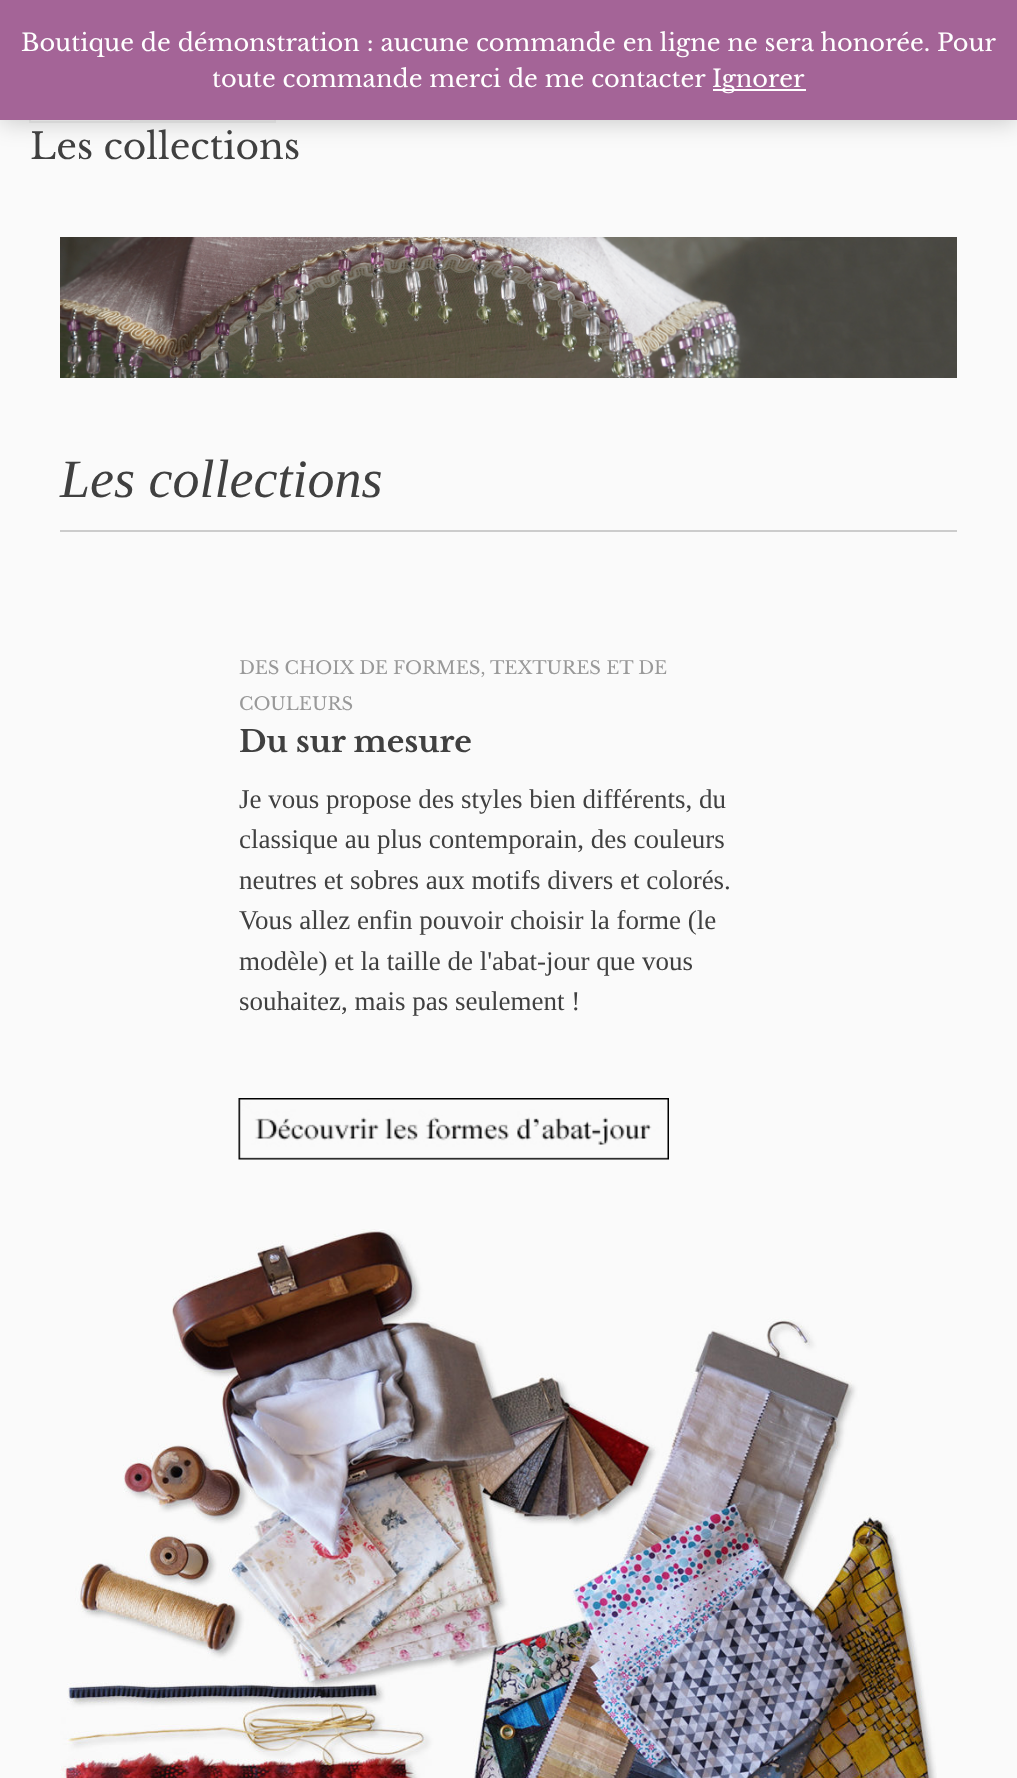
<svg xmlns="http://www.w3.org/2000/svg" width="1017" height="1778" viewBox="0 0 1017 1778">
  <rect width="100%" height="100%" fill="rgb(250,250,250)"/>
  <rect x="30" y="87" width="101" height="35" fill="none" stroke="rgb(238,238,238)" stroke-width="2"/>
  <rect x="133" y="120" width="141" height="1" fill="rgb(242,242,242)"/>
  <rect x="132" y="87" width="143" height="35" fill="none" stroke="rgb(238,238,238)" stroke-width="2"/>
  <rect x="0" y="2" width="1017" height="120" fill="rgba(0,0,0,0.2)" filter="blur(12px)"/>
  <rect x="0" y="0" width="1017" height="120" fill="rgb(164,100,151)"/>
  <g font-family="Libre Baskerville" font-size="24" fill="rgb(255,255,255)">
    <text x="21" y="51">Boutique de démonstration : aucune commande en ligne ne sera honorée. Pour</text>
    <text x="212" y="87">toute commande merci de me contacter</text>
  </g>
  <rect x="713" y="89" width="93" height="2" fill="rgb(255,255,255)"/>
  <text x="712" y="87" font-family="Libre Baskerville" font-size="24" fill="rgb(255,255,255)">Ignorer</text>
  <text x="30" y="159" font-family="Libre Baskerville" font-size="36" fill="rgb(64,64,64)">Les collections</text>
  <image x="60" y="237" width="897" height="141" href="pic1.png"/>
  <text x="60" y="497" font-family="Liberation Serif" font-size="54" font-style="italic" fill="rgb(64,64,64)">Les collections</text>
  <rect x="60" y="530" width="897" height="2" fill="rgb(204,204,204)"/>
  <g font-family="Libre Baskerville" font-size="18" fill="rgb(153,153,153)">
    <text x="239" y="674">DES CHOIX DE FORMES, TEXTURES ET DE</text>
    <text x="239" y="710">COULEURS</text>
  </g>
  <text x="239" y="752" font-family="Libre Baskerville" font-size="30" font-weight="bold" fill="rgb(64,64,64)">Du sur mesure</text>
  <g font-family="Liberation Serif" font-size="27" fill="rgb(64,64,64)">
    <text>
      <tspan x="239" y="808">Je vous propose des styles bien différents, du</tspan>
      <tspan x="239" y="848">classique au plus contemporain, des couleurs</tspan>
      <tspan x="239" y="889">neutres et sobres aux motifs divers et colorés.</tspan>
      <tspan x="239" y="929">Vous allez enfin pouvoir choisir la forme (le</tspan>
      <tspan x="239" y="970">modèle) et la taille de l'abat-jour que vous</tspan>
      <tspan x="239" y="1010">souhaitez, mais pas seulement !</tspan>
    </text>
  </g>
  <image x="238" y="1098" width="431" height="62" href="pic2.png"/>
  <image x="60" y="1229" width="877" height="549" href="pic3.png"/>
</svg>
